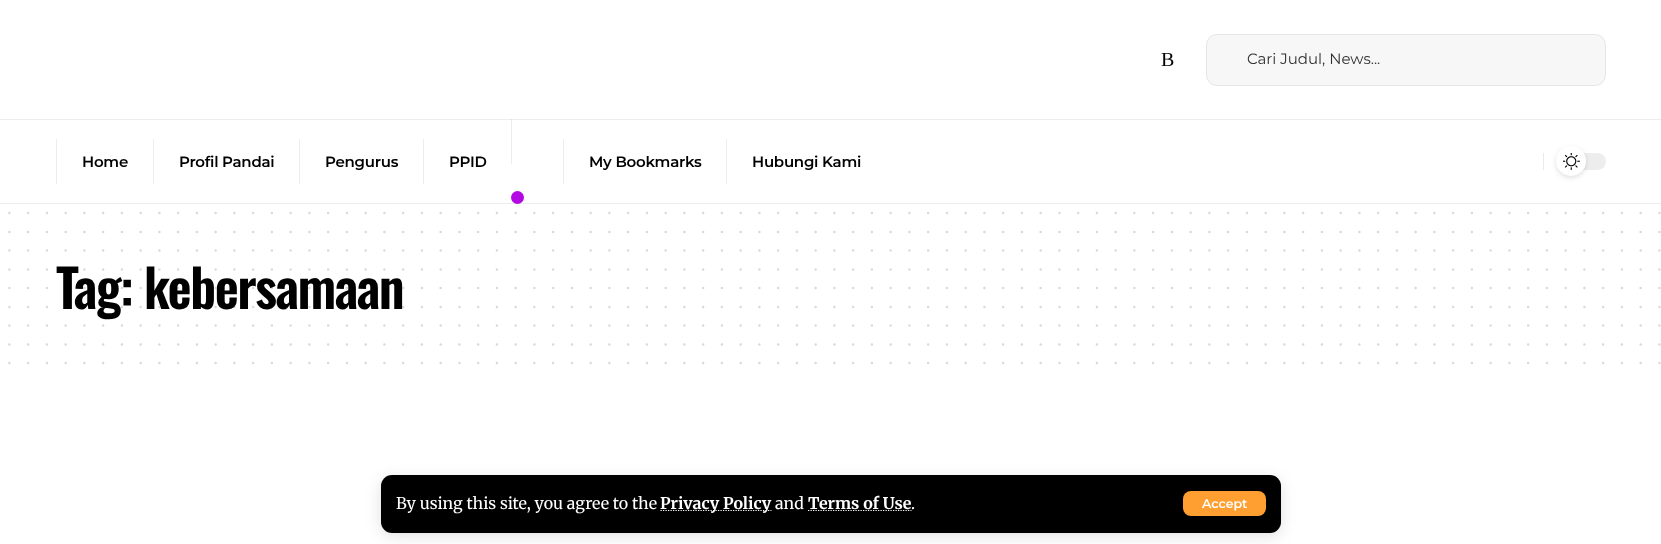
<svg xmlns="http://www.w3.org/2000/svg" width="1661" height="544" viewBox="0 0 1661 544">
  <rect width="100%" height="100%" fill="rgb(255,255,255)"/>
  <rect x="511" y="119" width="1" height="45" fill="rgb(237,237,237)"/>
  <text x="1161" y="66" font-family="Liberation Serif" font-size="20" fill="rgb(0,0,0)">B</text>
  <rect x="1206" y="34" width="400" height="52" rx="11" fill="rgb(247,247,247)"/>
  <rect x="1206.5" y="34.5" width="399" height="51" rx="10.5" fill="none" stroke="rgba(136,136,136,0.15)"/>
  <text x="1247" y="64" font-family="Montserrat" font-size="15" fill="rgb(49,49,49)">Cari Judul, News...</text>
  <rect x="0" y="119" width="1661" height="1" fill="rgb(237,237,237)"/>
  <rect x="511" y="119" width="1" height="1" fill="rgb(222,222,222)"/>
  <rect x="56" y="139" width="1" height="45" fill="rgb(237,237,237)"/>
  <text x="82" y="167" font-family="Montserrat" font-size="15" font-weight="600" letter-spacing="-0.25" fill="rgb(0,0,0)">Home</text>
  <rect x="153" y="139" width="1" height="45" fill="rgb(237,237,237)"/>
  <text x="179" y="167" font-family="Montserrat" font-size="15" font-weight="600" letter-spacing="-0.25" fill="rgb(0,0,0)">Profil Pandai</text>
  <rect x="299" y="139" width="1" height="45" fill="rgb(237,237,237)"/>
  <text x="325" y="167" font-family="Montserrat" font-size="15" font-weight="600" letter-spacing="-0.25" fill="rgb(0,0,0)">Pengurus</text>
  <rect x="423" y="139" width="1" height="45" fill="rgb(237,237,237)"/>
  <text x="449" y="167" font-family="Montserrat" font-size="15" font-weight="600" letter-spacing="-0.25" fill="rgb(0,0,0)">PPID</text>
  <rect x="563" y="139" width="1" height="45" fill="rgb(237,237,237)"/>
  <text x="589" y="167" font-family="Montserrat" font-size="15" font-weight="600" letter-spacing="-0.25" fill="rgb(0,0,0)">My Bookmarks</text>
  <rect x="726" y="139" width="1" height="45" fill="rgb(237,237,237)"/>
  <text x="752" y="167" font-family="Montserrat" font-size="15" font-weight="600" letter-spacing="-0.25" fill="rgb(0,0,0)">Hubungi Kami</text>
  <circle cx="517.5" cy="197.5" r="6.5" fill="rgb(179,7,228)"/>
  <rect x="1543" y="153" width="1" height="17" fill="rgb(234,234,234)"/>
  <rect x="1556" y="153" width="50" height="17" rx="8.5" fill="rgb(237,237,237)"/>
  <rect x="1556" y="148" width="30" height="30" rx="15" fill="rgba(0,0,0,0.12)" filter="blur(2.5px)"/>
  <circle cx="1571" cy="161" r="15" fill="rgb(255,255,255)"/>
  <image x="1563" y="153" width="17" height="17" href="pic1.png"/>
  <rect x="0" y="203" width="1661" height="1" fill="rgba(136,136,136,0.15)"/>
  <rect x="381" y="479" width="900" height="57" rx="11" fill="rgba(0,0,0,0.12)" filter="blur(7.5px)"/>
  <rect x="381" y="475" width="900" height="58" rx="11" fill="rgb(0,0,0)"/>
  <text x="396" y="509" font-family="Merriweather" font-size="16" fill="rgb(255,255,255)">By using this site, you agree to the</text>
  <path d="M660.5 510.5H771.5" fill="none" stroke="rgb(255,255,255)" stroke-width="1.2" stroke-dasharray="1.25 1.25"/>
  <text x="660" y="509" font-family="Merriweather" font-size="16" font-weight="bold" fill="rgb(255,255,255)">Privacy Policy</text>
  <text x="775" y="509" font-family="Merriweather" font-size="16" fill="rgb(255,255,255)">and</text>
  <path d="M808 510.5H911.5" fill="none" stroke="rgb(255,255,255)" stroke-width="1.2" stroke-dasharray="1.25 1.25"/>
  <text x="808" y="509" font-family="Merriweather" font-size="16" font-weight="bold" fill="rgb(255,255,255)">Terms of Use</text>
  <text x="911" y="509" font-family="Merriweather" font-size="16" fill="rgb(255,255,255)">.</text>
  <rect x="1183" y="491" width="83" height="25" rx="8" fill="rgb(255,159,49)"/>
  <text x="1202" y="508" font-family="Montserrat" font-size="12.5" font-weight="600" fill="rgb(255,255,255)">Accept</text>
  <path d="M9.4 213.1H1659.6" fill="none" stroke="rgb(217,217,217)" stroke-width="2.5" stroke-linecap="round" stroke-dasharray="0 18.75"/>
  <path d="M9.4 231.9H1659.6" fill="none" stroke="rgb(217,217,217)" stroke-width="2.5" stroke-linecap="round" stroke-dasharray="0 18.75"/>
  <path d="M9.4 250.6H1659.6" fill="none" stroke="rgb(217,217,217)" stroke-width="2.5" stroke-linecap="round" stroke-dasharray="0 18.75"/>
  <text x="56" y="309" font-family="Oswald" font-size="52.5" font-weight="600" letter-spacing="-1.5" fill="rgb(0,0,0)">Tag: kebersamaan</text>
  <path d="M9.4 269.4H1659.6" fill="none" stroke="rgba(0,0,0,0.15)" stroke-width="2.5" stroke-linecap="round" stroke-dasharray="0 18.75"/>
  <path d="M9.4 288.1H1659.6" fill="none" stroke="rgba(0,0,0,0.15)" stroke-width="2.5" stroke-linecap="round" stroke-dasharray="0 18.75"/>
  <path d="M9.4 306.9H1659.6" fill="none" stroke="rgba(0,0,0,0.15)" stroke-width="2.5" stroke-linecap="round" stroke-dasharray="0 18.75"/>
  <path d="M9.4 325.6H1659.6" fill="none" stroke="rgb(217,217,217)" stroke-width="2.5" stroke-linecap="round" stroke-dasharray="0 18.75"/>
  <path d="M9.4 344.4H1659.6" fill="none" stroke="rgb(217,217,217)" stroke-width="2.5" stroke-linecap="round" stroke-dasharray="0 18.75"/>
  <path d="M9.4 363.1H1659.6" fill="none" stroke="rgb(217,217,217)" stroke-width="2.5" stroke-linecap="round" stroke-dasharray="0 18.75"/>
</svg>
